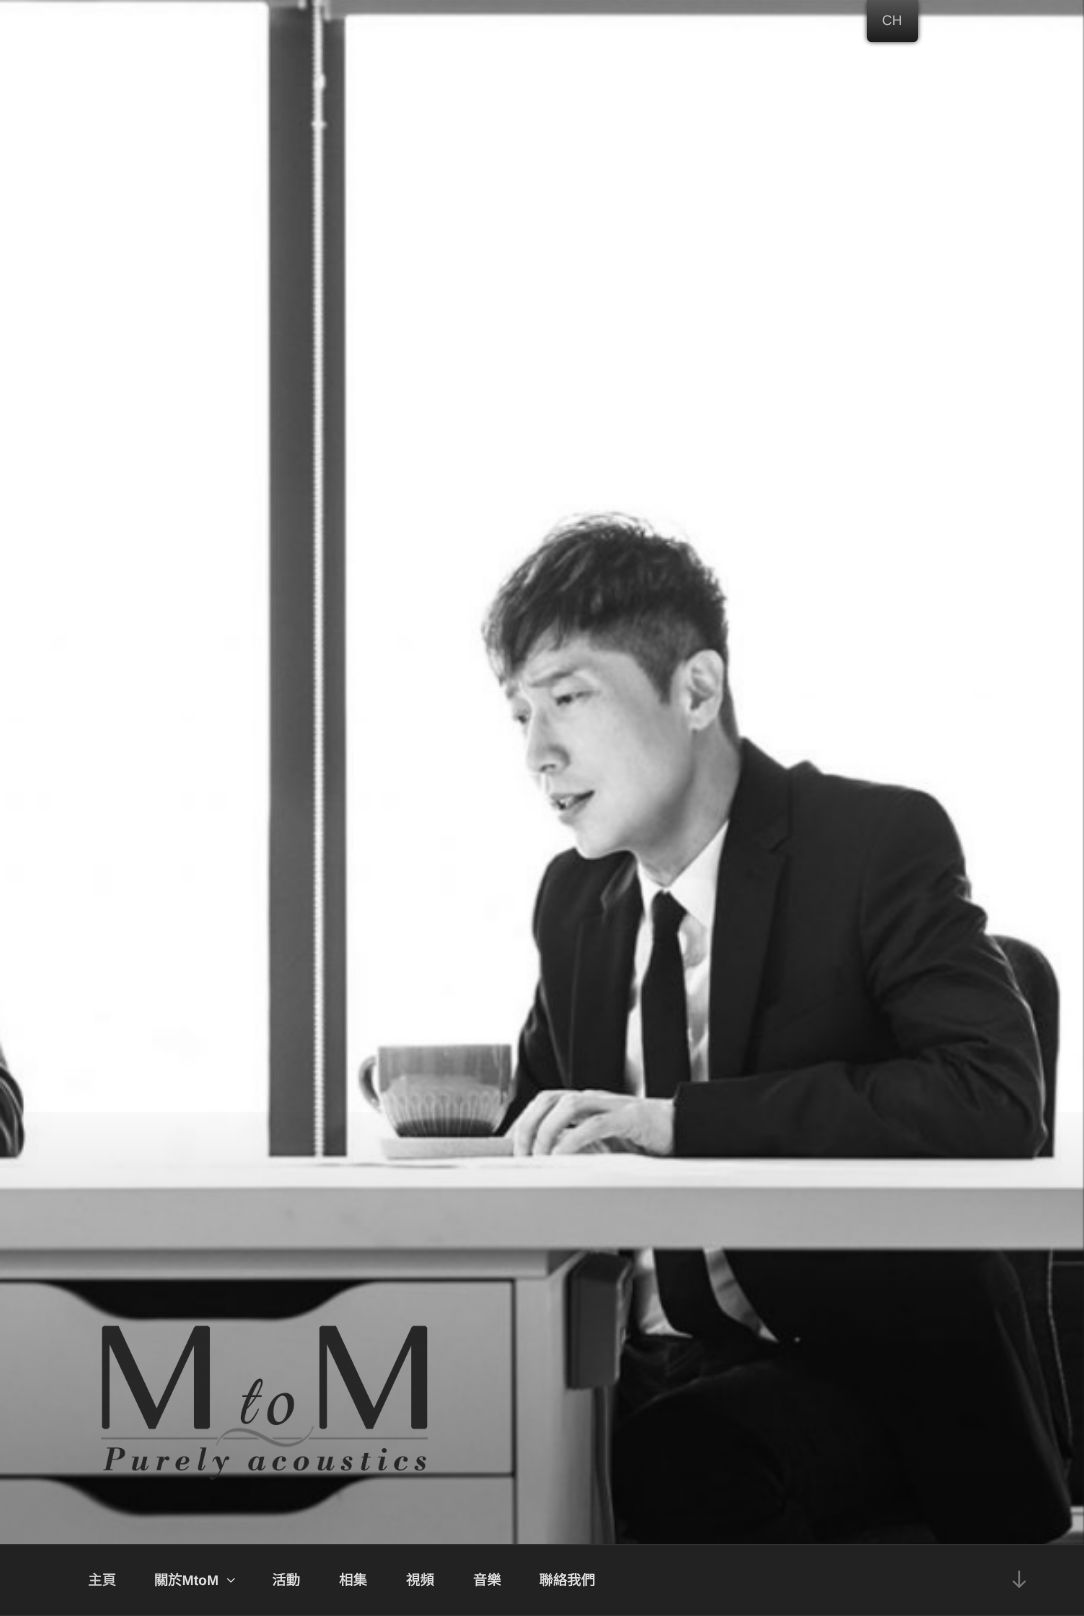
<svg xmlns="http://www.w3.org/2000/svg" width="1084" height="1616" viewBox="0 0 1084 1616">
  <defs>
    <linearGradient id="g1" gradientUnits="userSpaceOnUse" x1="893" y1="42" x2="893" y2="0"><stop offset="0" stop-color="rgb(27,27,27)"/><stop offset="1" stop-color="rgb(84,84,84)"/></linearGradient>
    <linearGradient id="g2" gradientUnits="userSpaceOnUse" x1="542" y1="1083" x2="542" y2="1616"><stop offset="0" stop-color="rgb(0,0,0)" stop-opacity="0"/><stop offset="0.75" stop-color="rgb(0,0,0)" stop-opacity="0.3"/><stop offset="1" stop-color="rgb(0,0,0)" stop-opacity="0.3"/></linearGradient>
  </defs>
  <rect width="100%" height="100%" fill="rgb(38,38,38)"/>
  <image x="0" y="0" width="1084" height="1544" href="pic1.png"/>
  <rect x="867" y="0" width="51" height="42" rx="5" fill="rgb(33,33,33)" filter="blur(2.5px)"/>
  <path d="M867 0H918V37C918 40 916 42 913 42H872C869 42 867 40 867 37Z" fill="url(#g1)"/>
  <text x="882" y="25" font-family="Liberation Sans" font-size="14" fill="rgb(189,189,189)">CH</text>
  <rect x="0" y="1112" width="1084" height="432" fill="url(#g2)"/>
  <image x="101" y="1325" width="327" height="155" href="pic2.png"/>
  <rect x="0" y="1545" width="1084" height="70" fill="rgb(34,34,34)"/>
  <rect x="0" y="1544" width="1084" height="1" fill="rgb(51,51,51)"/>
  <rect x="0" y="1615" width="1084" height="1" fill="rgb(51,51,51)"/>
  <text x="88" y="1585" font-family="Noto Sans CJK HK" font-size="14" font-weight="bold" fill="rgb(204,204,204)">主頁</text>
  <text x="154" y="1585" font-family="Noto Sans CJK HK" font-size="14" font-weight="bold" fill="rgb(221,221,221)">關於</text>
  <text x="182" y="1585" font-family="Liberation Sans" font-size="14" font-weight="bold" fill="rgb(221,221,221)">MtoM</text>
  <image x="227" y="1578" width="8" height="5" href="pic3.png"/>
  <g font-family="Noto Sans CJK HK" font-size="14" font-weight="bold" fill="rgb(221,221,221)">
    <text x="272" y="1585">活動</text>
    <text x="339" y="1585">相集</text>
    <text x="406" y="1585">視頻</text>
    <text x="473" y="1585">音樂</text>
    <text x="539" y="1585">聯絡我們</text>
  </g>
  <image x="1012" y="1570" width="14" height="18" href="pic4.png"/>
</svg>
